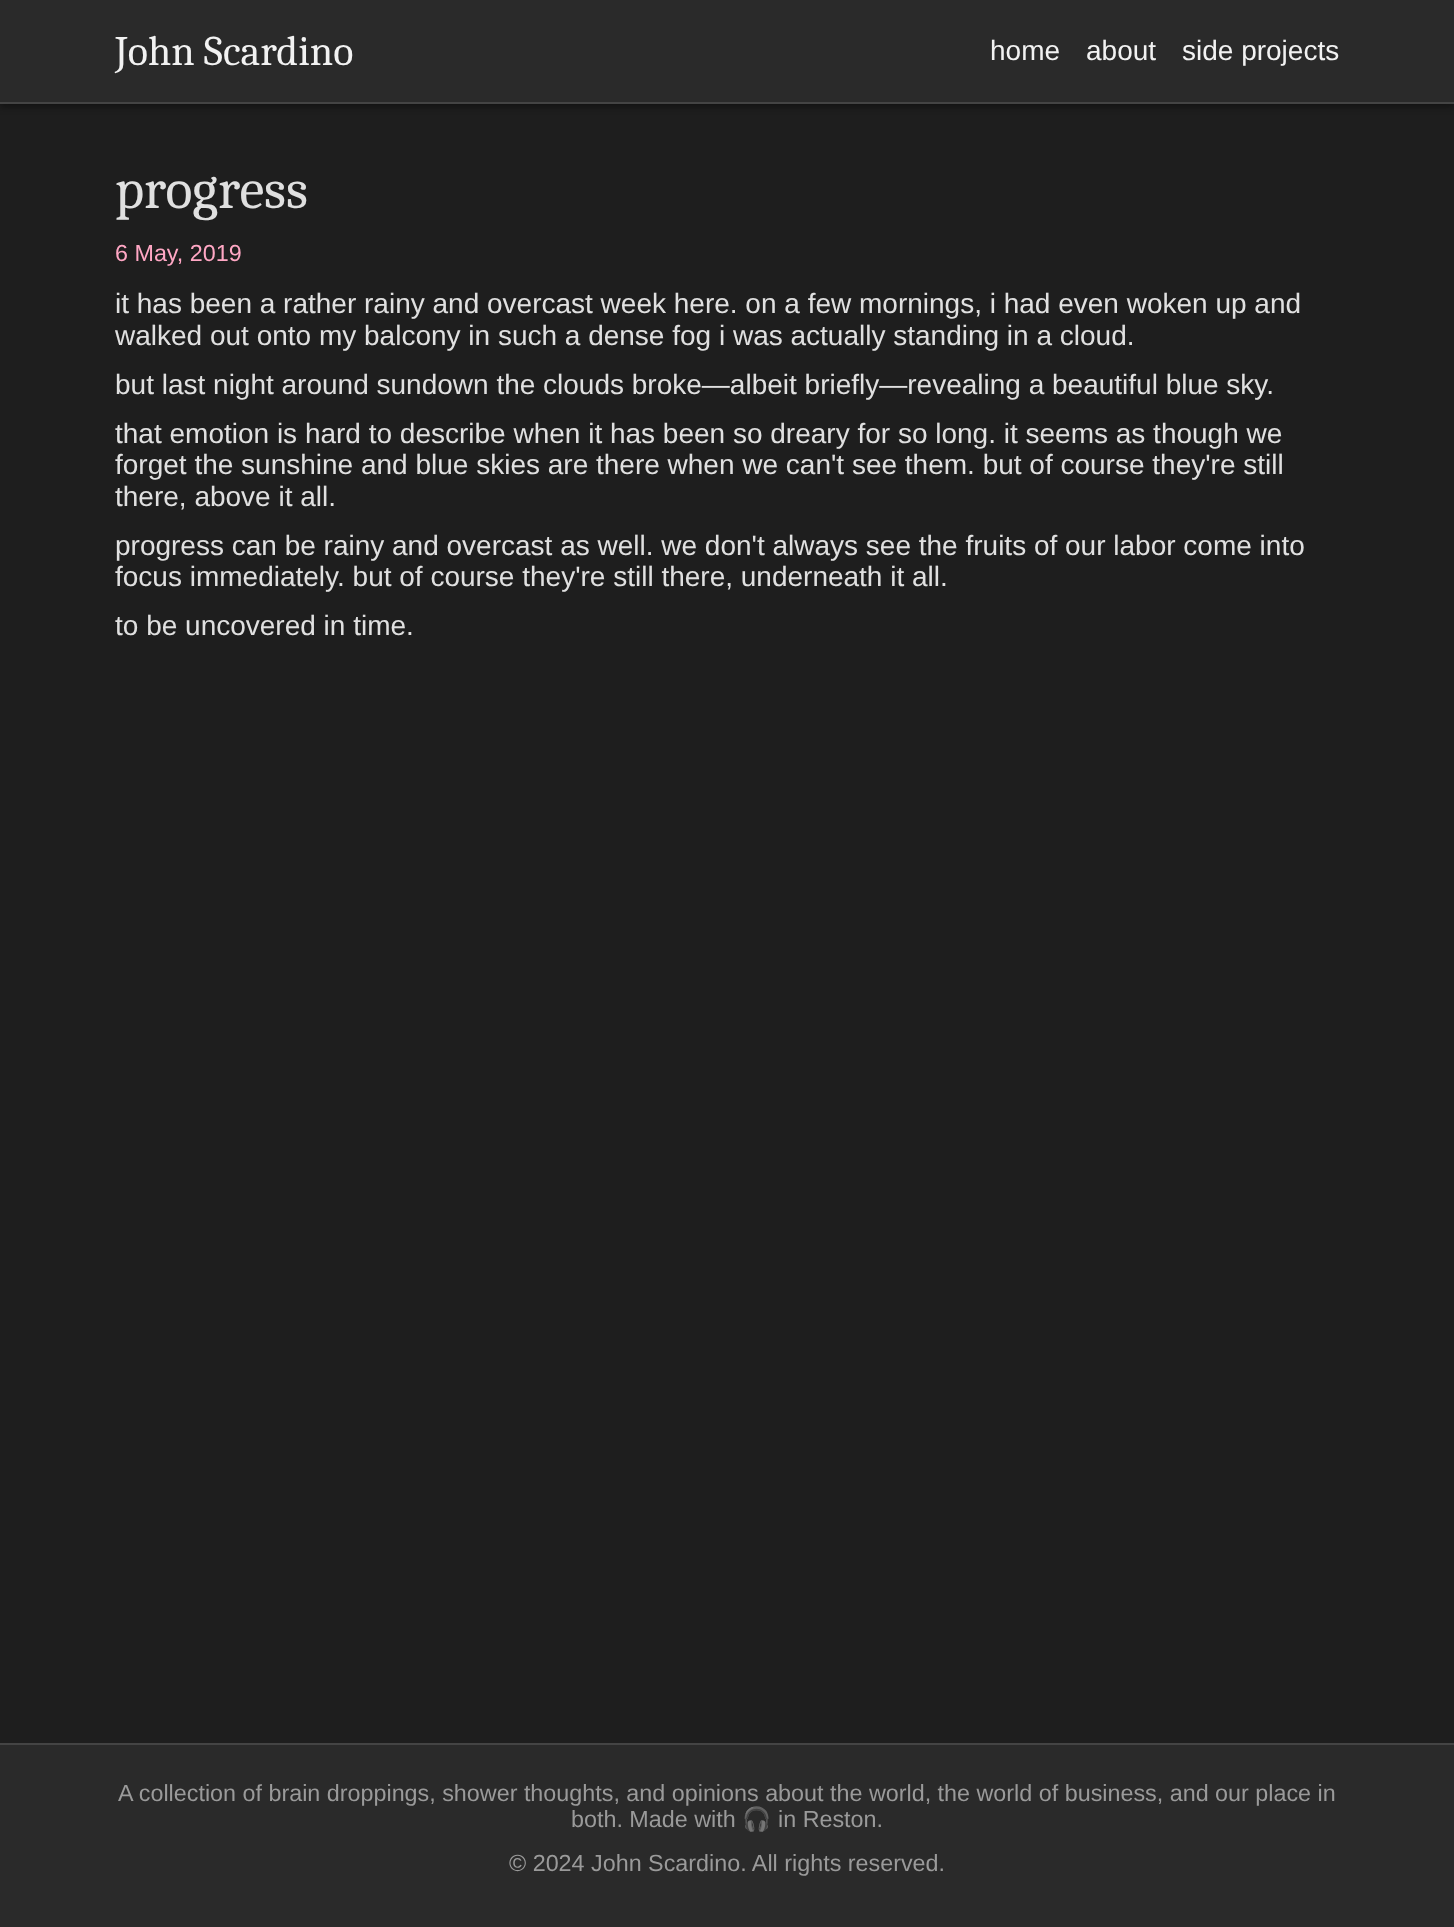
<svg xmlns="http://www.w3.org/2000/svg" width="1454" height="1927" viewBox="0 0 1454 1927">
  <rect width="100%" height="100%" fill="rgb(30,30,30)"/>
  <rect x="0" y="4" width="1454" height="103" fill="rgba(0,0,0,0.4)" filter="blur(3.5px)"/>
  <rect x="0" y="0" width="1454" height="102" fill="rgb(42,42,42)"/>
  <rect x="0" y="102" width="1454" height="2" fill="rgb(68,68,68)"/>
  <text x="115" y="65" font-family="Caladea" font-size="42" fill="rgb(242,242,242)">John Scardino</text>
  <g font-family="Liberation Sans" font-size="28" fill="rgb(242,242,242)">
    <text x="990" y="60">home</text>
    <text x="1086" y="60">about</text>
    <text x="1182" y="60">side projects</text>
  </g>
  <text x="115" y="208" font-family="Caladea" font-size="56" fill="rgb(224,224,224)">progress</text>
  <text x="115" y="261" font-family="Liberation Sans" font-size="23.33" fill="rgb(255,167,196)">6 May, 2019</text>
  <g font-family="Liberation Sans" font-size="28" fill="rgb(224,224,224)">
    <text>
      <tspan x="115" y="313">it has been a rather rainy and overcast week here. on a few mornings, i had even woken up and</tspan>
      <tspan x="115" y="345">walked out onto my balcony in such a dense fog i was actually standing in a cloud.</tspan>
      <tspan x="115" y="394">but last night around sundown the clouds broke—albeit briefly—revealing a beautiful blue sky.</tspan>
      <tspan x="115" y="443">that emotion is hard to describe when it has been so dreary for so long. it seems as though we</tspan>
      <tspan x="115" y="474">forget the sunshine and blue skies are there when we can't see them. but of course they're still</tspan>
      <tspan x="115" y="506">there, above it all.</tspan>
      <tspan x="115" y="555">progress can be rainy and overcast as well. we don't always see the fruits of our labor come into</tspan>
      <tspan x="115" y="586">focus immediately. but of course they're still there, underneath it all.</tspan>
      <tspan x="115" y="635">to be uncovered in time.</tspan>
    </text>
  </g>
  <rect x="0" y="1745" width="1454" height="182" fill="rgb(42,42,42)"/>
  <rect x="0" y="1743" width="1454" height="2" fill="rgb(68,68,68)"/>
  <g font-family="Liberation Sans" font-size="23.33" fill="rgb(154,154,154)">
    <text x="118" y="1801">A collection of brain droppings, shower thoughts, and opinions about the world, the world of business, and our place in</text>
    <text x="571" y="1827">both. Made with</text>
  </g>
  <text x="742" y="1827" font-family="Noto Color Emoji" font-size="23.33" fill="rgb(154,154,154)">🎧</text>
  <g font-family="Liberation Sans" font-size="23.33" fill="rgb(154,154,154)">
    <text x="778" y="1827">in Reston.</text>
    <text x="509" y="1871">© 2024 John Scardino. All rights reserved.</text>
  </g>
</svg>
